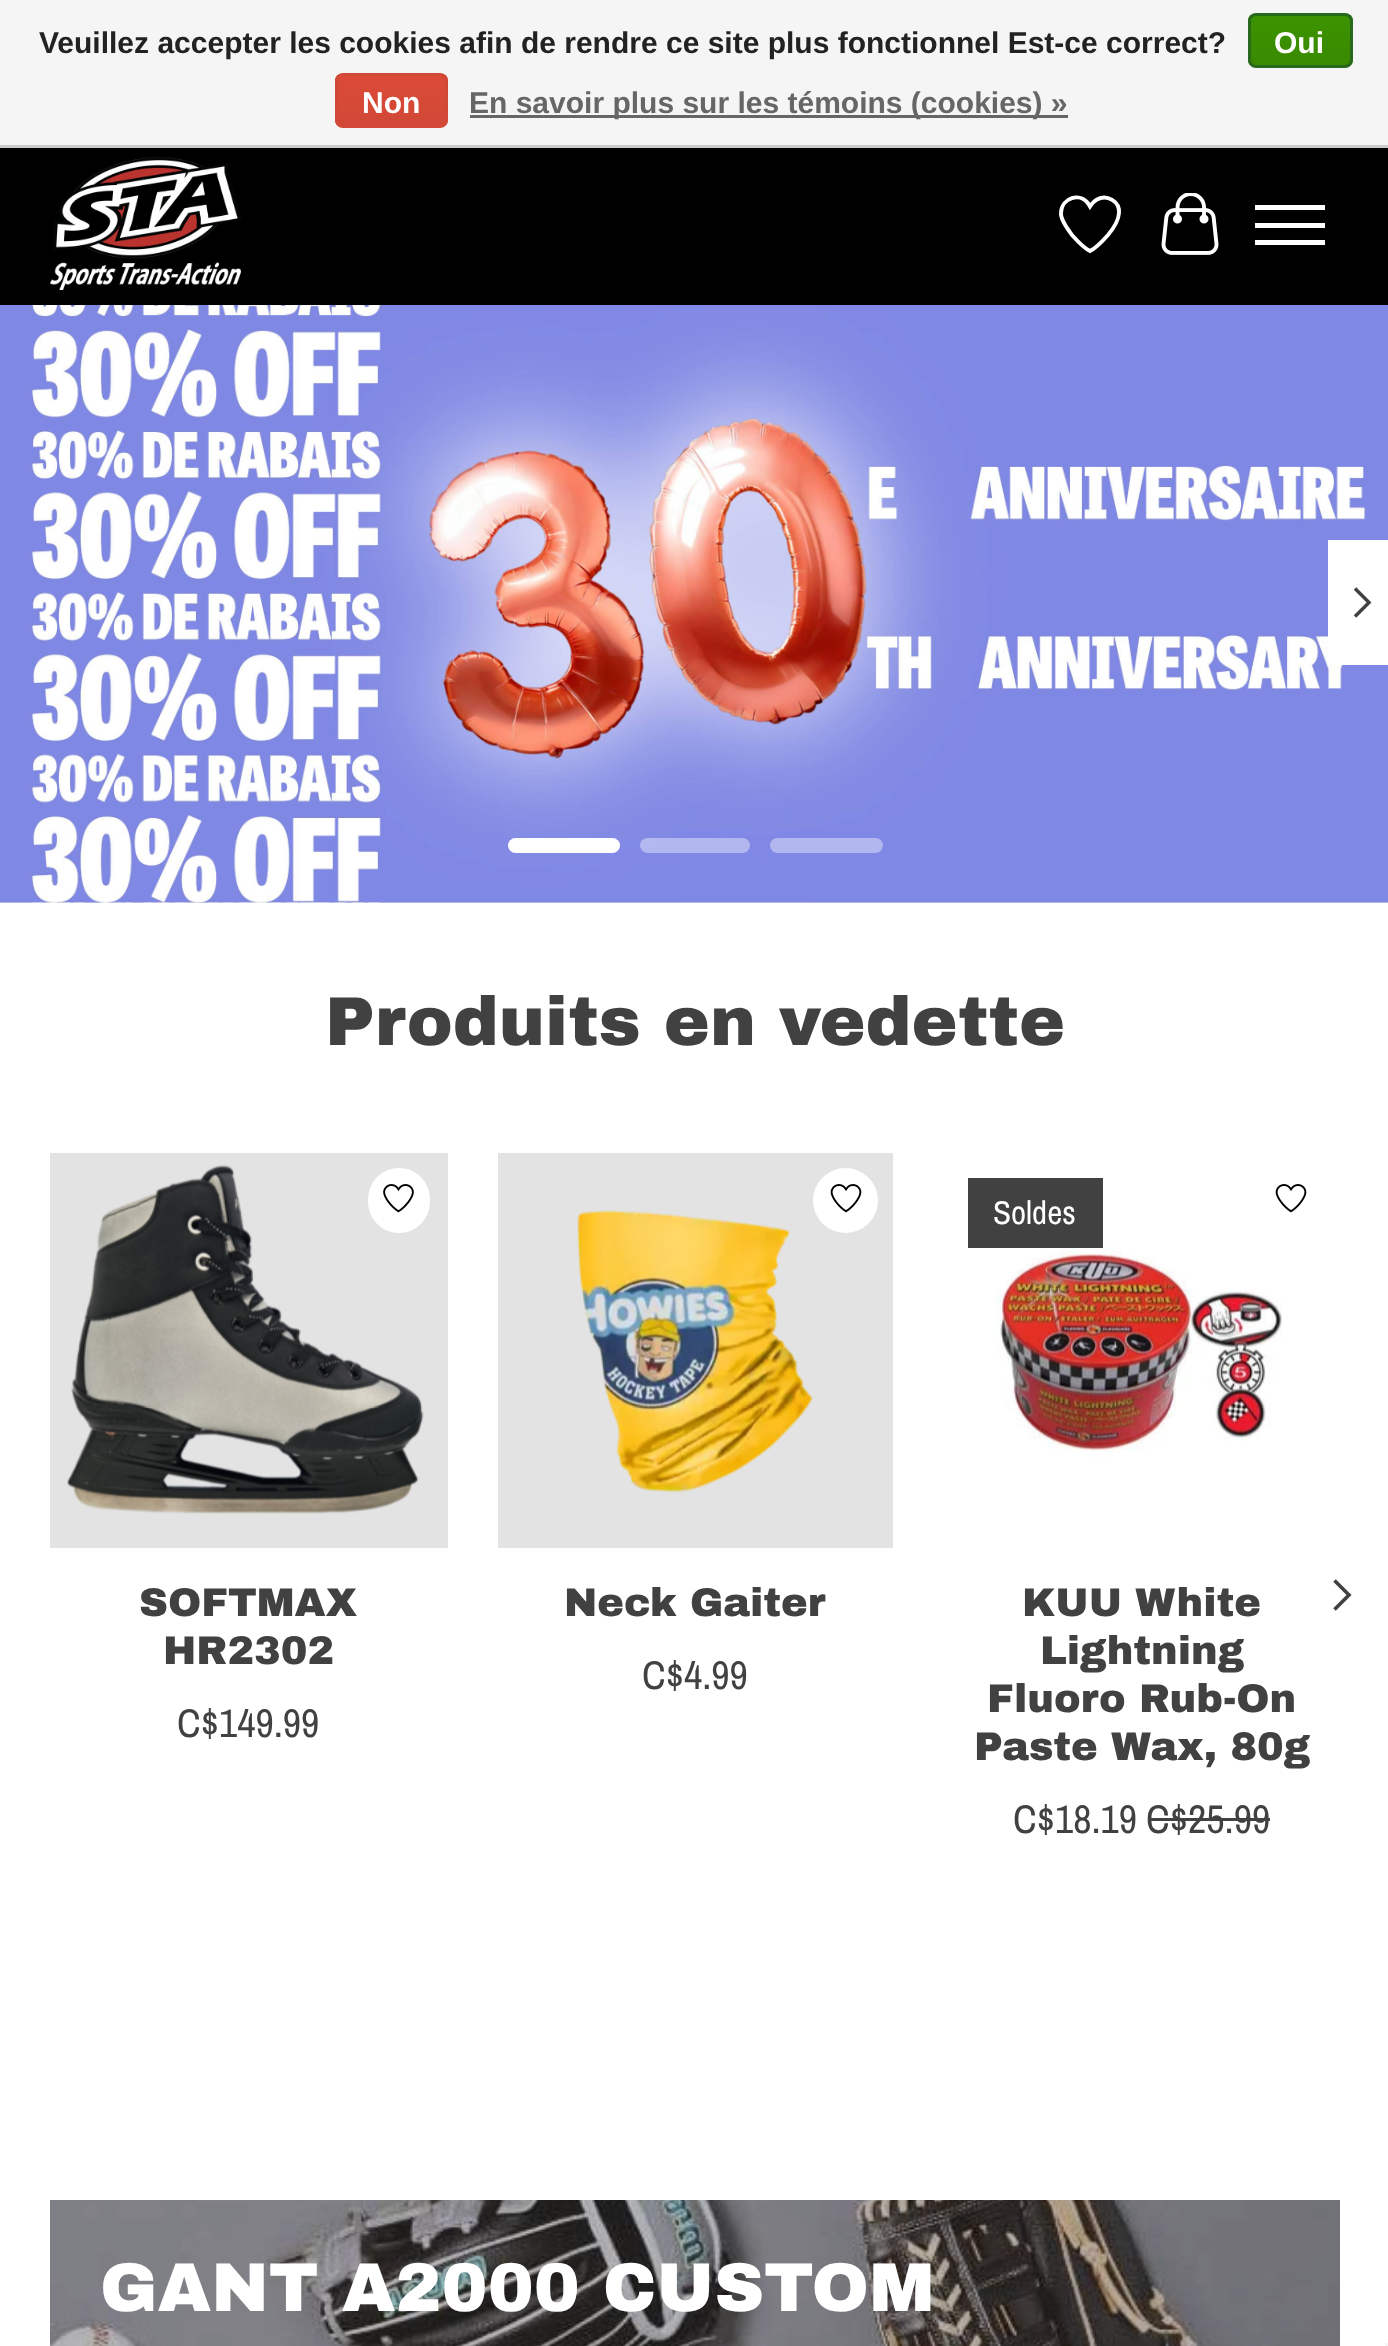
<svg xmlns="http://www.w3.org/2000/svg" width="1388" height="2346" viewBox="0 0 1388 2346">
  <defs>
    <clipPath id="clip1"><rect x="1248" y="13" width="105" height="55" rx="8"/></clipPath>
    <linearGradient id="g1" gradientUnits="userSpaceOnUse" x1="1300" y1="15" x2="1300" y2="65"><stop offset="0" stop-color="rgb(60,147,0)"/><stop offset="1" stop-color="rgb(57,138,0)"/></linearGradient>
    <clipPath id="clip2"><rect x="335" y="73" width="113" height="55" rx="8"/></clipPath>
    <linearGradient id="g2" gradientUnits="userSpaceOnUse" x1="391" y1="75" x2="391" y2="125"><stop offset="0" stop-color="rgb(220,74,56)"/><stop offset="1" stop-color="rgb(209,72,54)"/></linearGradient>
  </defs>
  <rect width="100%" height="100%" fill="rgb(255,255,255)"/>
  <rect x="0" y="0" width="1388" height="145" fill="rgb(245,245,245)"/>
  <rect x="0" y="145" width="1388" height="3" fill="rgb(204,204,204)"/>
  <text x="39" y="53" font-family="Liberation Sans" font-size="30" font-weight="bold" fill="rgb(34,34,34)">Veuillez accepter les cookies afin de rendre ce site plus fonctionnel Est-ce correct?</text>
  <g clip-path="url(#clip1)">
    <rect x="1248" y="15" width="105" height="50" fill="url(#g1)"/>
  </g>
  <rect x="1249.5" y="14.5" width="102" height="52" rx="6.5" fill="none" stroke="rgb(41,105,29)" stroke-width="3"/>
  <text x="1274" y="53" font-family="Liberation Sans" font-size="30" font-weight="bold" fill="rgb(255,255,255)">Oui</text>
  <g clip-path="url(#clip2)">
    <rect x="335" y="75" width="113" height="50" fill="url(#g2)"/>
  </g>
  <rect x="336.5" y="74.5" width="110" height="52" rx="6.5" fill="none" stroke="rgb(209,72,54)" stroke-width="3"/>
  <text x="362" y="113" font-family="Liberation Sans" font-size="30" font-weight="bold" fill="rgb(255,255,255)">Non</text>
  <rect x="470" y="115" width="598" height="3" fill="rgb(102,102,102)"/>
  <text x="469" y="113" font-family="Liberation Sans" font-size="30" font-weight="bold" fill="rgb(102,102,102)">En savoir plus sur les témoins (cookies) »</text>
  <rect x="0" y="148" width="1388" height="157" fill="rgb(0,0,0)"/>
  <image x="50" y="157" width="192" height="133" href="pic1.png"/>
  <path d="M1088.5 204L1090 206.5C1092 203.5 1094 201 1097 199.5C1107 194 1120 201.5 1119 213C1118.5 221 1113 229 1108 235C1103.5 240 1096.5 248 1090 251C1083.5 248 1076.5 240 1072 235C1068 229.5 1060 219.5 1061 212.5C1062 197.5 1080 192 1088.5 204Z" fill="none" stroke="rgb(255,255,255)" stroke-width="3.9"/>
  <image x="1161" y="193" width="58" height="62" href="pic2.png"/>
  <rect x="1255" y="223" width="70" height="5" fill="rgb(255,255,255)"/>
  <rect x="1255" y="205" width="70" height="5" fill="rgb(255,255,255)"/>
  <rect x="1255" y="240" width="70" height="5" fill="rgb(255,255,255)"/>
  <rect x="0" y="902" width="1388" height="1" fill="rgb(227,227,227)"/>
  <image x="0" y="305" width="1388" height="598" href="pic3.png"/>
  <rect x="1328" y="540" width="60" height="125" fill="rgb(255,255,255)"/>
  <path d="M1355 616.5L1369 602.5L1355 588.5" fill="none" stroke="rgb(65,65,65)" stroke-width="3.5"/>
  <rect x="508" y="838" width="112" height="15" rx="7.5" fill="rgb(255,255,255)"/>
  <rect x="640" y="838" width="110" height="15" rx="7.5" fill="rgba(255,255,255,0.4)"/>
  <rect x="770" y="838" width="113" height="15" rx="7.5" fill="rgb(179,183,239)"/>
  <text x="325" y="1045" font-family="Archivo Black" font-size="69.1" font-weight="900" fill="rgb(65,65,65)">Produits en vedette</text>
  <rect x="50" y="1153" width="398" height="395" fill="rgb(227,227,227)"/>
  <image x="67" y="1165" width="357" height="349" href="pic4.png"/>
  <rect x="368" y="1168" width="62" height="65" rx="31" fill="rgb(255,255,255)"/>
  <image x="383" y="1184" width="31" height="29" href="pic5.png"/>
  <g font-family="Archivo Black" font-size="40" font-weight="900" fill="rgb(65,65,65)">
    <text x="139" y="1616">SOFTMAX</text>
    <text x="163" y="1664">HR2302</text>
  </g>
  <text x="177" y="1737" font-family="Archivo Narrow" font-size="40" fill="rgb(65,65,65)">C$149.99</text>
  <rect x="498" y="1153" width="395" height="395" fill="rgb(227,227,227)"/>
  <image x="577" y="1210" width="236" height="283" href="pic6.png"/>
  <circle cx="845.5" cy="1200.5" r="32.5" fill="rgb(255,255,255)"/>
  <image x="830" y="1184" width="32" height="29" href="pic7.png"/>
  <text x="564" y="1616" font-family="Archivo Black" font-size="40" font-weight="900" fill="rgb(65,65,65)">Neck Gaiter</text>
  <text x="642" y="1689" font-family="Archivo Narrow" font-size="40" fill="rgb(65,65,65)">C$4.99</text>
  <image x="943" y="1153" width="397" height="395" href="pic8.png"/>
  <image x="1275" y="1184" width="32" height="29" href="pic9.png"/>
  <rect x="968" y="1178" width="135" height="70" fill="rgb(65,65,65)"/>
  <text x="993" y="1224" font-family="Archivo Narrow" font-size="33" fill="rgb(255,255,255)">Soldes</text>
  <g font-family="Archivo Black" font-size="40" font-weight="900" fill="rgb(65,65,65)">
    <text x="1022" y="1616">KUU White</text>
    <text x="1040" y="1664">Lightning</text>
    <text x="987" y="1712">Fluoro Rub-On</text>
    <text x="974" y="1760">Paste Wax, 80g</text>
  </g>
  <text x="1013" y="1833" font-family="Archivo Narrow" font-size="40" fill="rgb(65,65,65)">C$18.19 C$25.99</text>
  <rect x="1148" y="1818" width="122" height="3" fill="rgb(65,65,65)"/>
  <path d="M1334.5 1609.5L1349 1595L1334.5 1580.5" fill="none" stroke="rgb(65,65,65)" stroke-width="3.6"/>
  <image x="50" y="2200" width="1290" height="146" href="pic10.png"/>
  <text x="100" y="2311" font-family="Archivo Black" font-size="69.1" font-weight="900" fill="rgb(255,255,255)">GANT A2000 CUSTOM</text>
  <rect x="1385" y="2343" width="3" height="3" fill="rgb(245,245,245)"/>
</svg>
